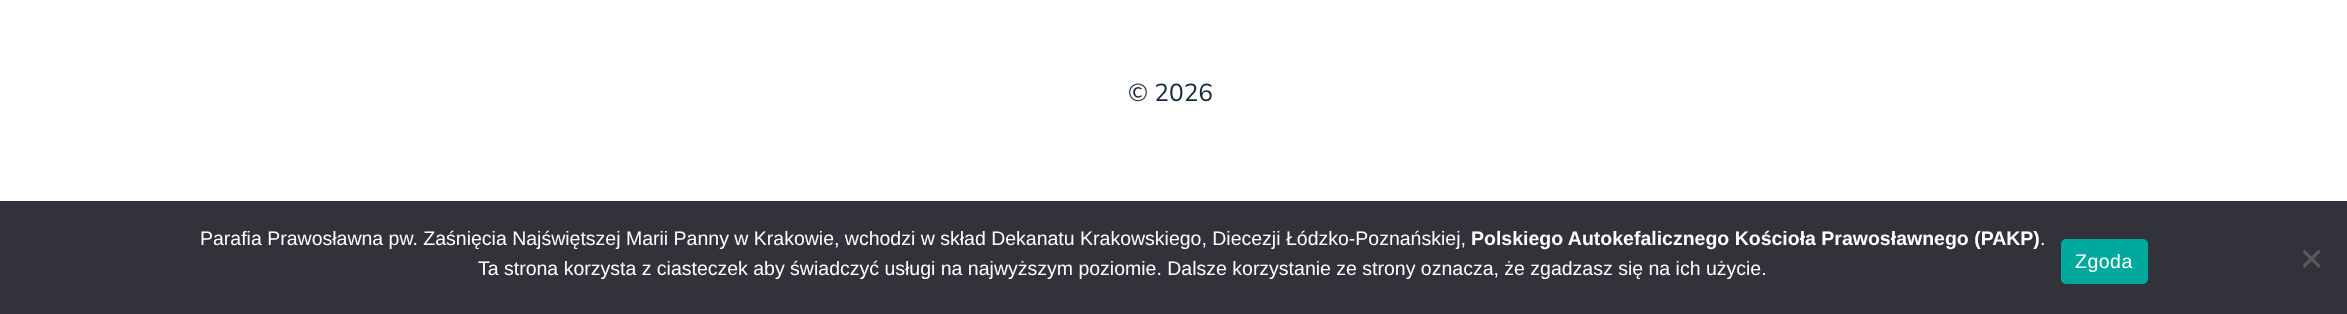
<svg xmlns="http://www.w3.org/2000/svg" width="2347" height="314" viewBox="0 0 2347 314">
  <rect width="100%" height="100%" fill="rgb(255,255,255)"/>
  <text x="1128" y="101" font-family="Nunito Sans" font-size="24.5" fill="rgb(19,38,58)">© 2026</text>
  <rect x="0" y="201" width="2347" height="113" fill="rgb(50,50,58)"/>
  <text x="200" y="245" font-family="Liberation Sans" font-size="19.5" fill="rgb(255,255,255)">Parafia Prawosławna pw. Zaśnięcia Najświętszej Marii Panny w Krakowie, wchodzi w skład Dekanatu Krakowskiego, Diecezji Łódzko-Poznańskiej,</text>
  <text x="1471" y="245" font-family="Liberation Sans" font-size="19.5" font-weight="bold" fill="rgb(255,255,255)">Polskiego Autokefalicznego Kościoła Prawosławnego (PAKP)</text>
  <g font-family="Liberation Sans" font-size="19.5" fill="rgb(255,255,255)">
    <text x="2040" y="245">.</text>
    <text x="478" y="275">Ta strona korzysta z ciasteczek aby świadczyć usługi na najwyższym poziomie. Dalsze korzystanie ze strony oznacza, że zgadzasz się na ich użycie.</text>
  </g>
  <rect x="2061" y="239" width="87" height="45" rx="5" fill="rgb(0,169,157)"/>
  <text x="2075" y="268" font-family="Liberation Sans" font-size="19.5" letter-spacing="0.5" fill="rgb(255,255,255)">Zgoda</text>
  <path d="M2318.5 249.5L2320.5 252L2304.5 268L2302.5 265.5Z" fill="rgb(89,89,93)"/>
  <path d="M2302.5 252L2304.5 249.5L2320.5 265.5L2318.5 268Z" fill="rgb(89,89,93)"/>
</svg>
